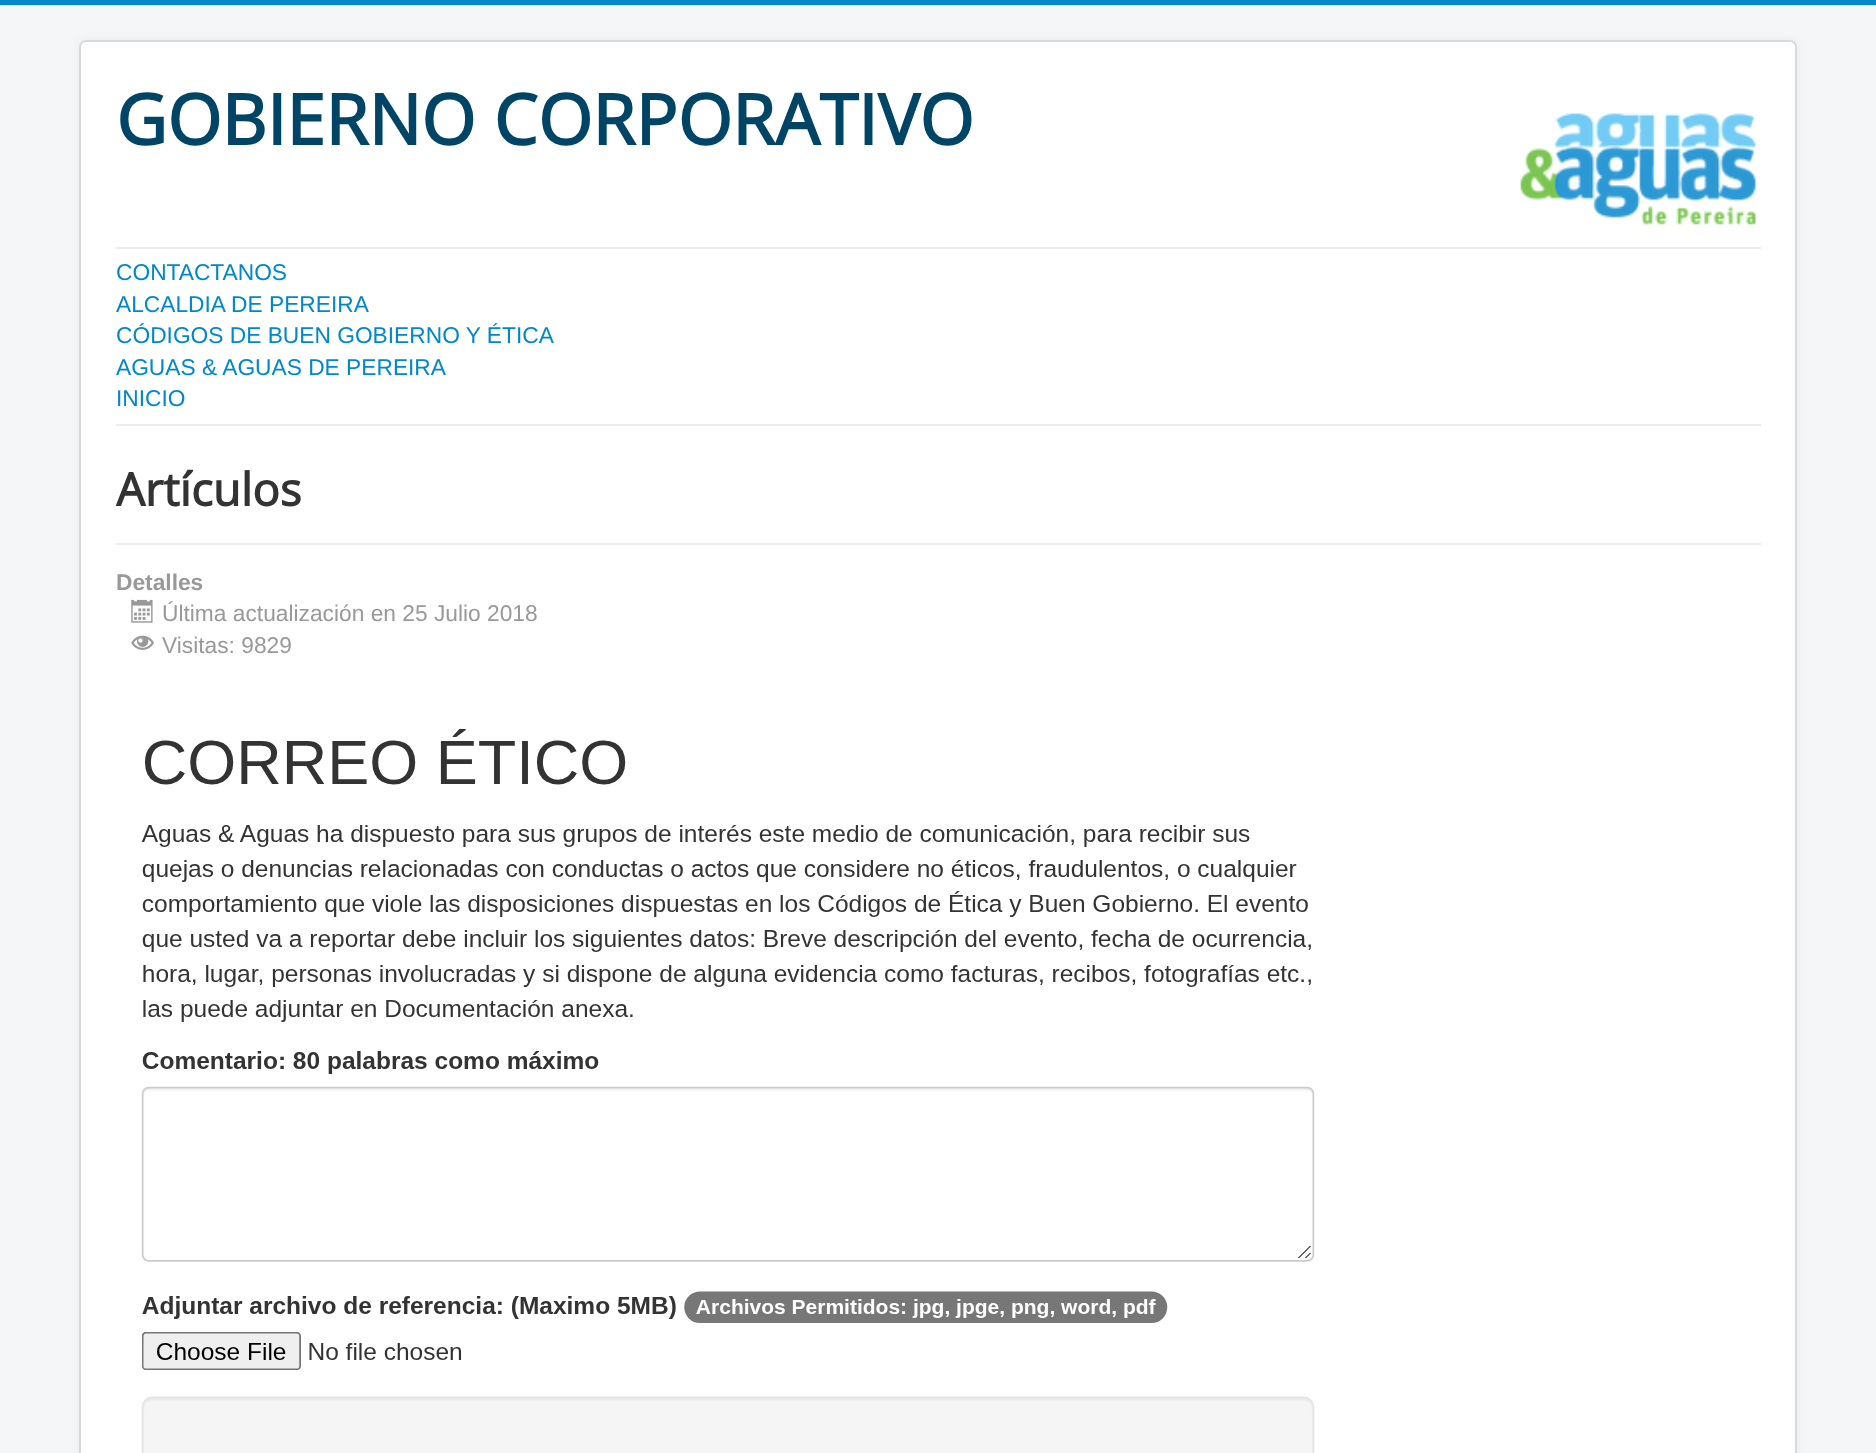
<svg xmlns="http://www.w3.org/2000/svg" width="1876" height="1453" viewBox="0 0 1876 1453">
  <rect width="100%" height="100%" fill="rgb(244,246,247)"/>
  <rect x="0" y="0" width="1876" height="5" fill="rgb(0,136,204)"/>
  <rect x="79" y="40" width="1718" height="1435" rx="7" fill="rgba(0,0,0,0.05)" filter="blur(5px)"/>
  <rect x="79" y="40" width="1718" height="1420" rx="7" fill="rgb(255,255,255)"/>
  <rect x="80" y="41" width="1716" height="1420" rx="6" fill="none" stroke="rgba(0,0,0,0.15)" stroke-width="2"/>
  <text x="116" y="145" font-family="Open Sans" font-size="70" font-weight="bold" fill="rgb(0,68,102)">GOBIERNO CORPORATIVO</text>
  <image x="1520" y="113" width="237" height="112" href="pic1.png"/>
  <rect x="116" y="247" width="1645" height="2" fill="rgb(236,236,236)"/>
  <rect x="116" y="424" width="1645" height="2" fill="rgb(236,236,236)"/>
  <g font-family="Liberation Sans" font-size="22.75" fill="rgb(0,136,204)">
    <text>
      <tspan x="116" y="280">CONTACTANOS</tspan>
      <tspan x="116" y="312">ALCALDIA DE PEREIRA</tspan>
      <tspan x="116" y="343">CÓDIGOS DE BUEN GOBIERNO Y ÉTICA</tspan>
      <tspan x="116" y="375">AGUAS &amp; AGUAS DE PEREIRA</tspan>
      <tspan x="116" y="406">INICIO</tspan>
    </text>
  </g>
  <rect x="116" y="543" width="1645" height="2" fill="rgb(238,238,238)"/>
  <text x="116" y="506" font-family="Open Sans" font-size="45.5" font-weight="bold" fill="rgb(51,51,51)">Artículos</text>
  <text x="116" y="590" font-family="Liberation Sans" font-size="22.75" font-weight="bold" fill="rgb(153,153,153)">Detalles</text>
  <image x="131" y="599" width="22" height="24" href="pic2.png"/>
  <text x="162" y="621" font-family="Liberation Sans" font-size="22.75" fill="rgb(153,153,153)">Última actualización en 25 Julio 2018</text>
  <image x="131" y="635" width="23" height="15" href="pic3.png"/>
  <text x="162" y="653" font-family="Liberation Sans" font-size="22.75" fill="rgb(153,153,153)">Visitas: 9829</text>
  <image x="141" y="729" width="1174" height="724" href="pic4.png"/>
</svg>
